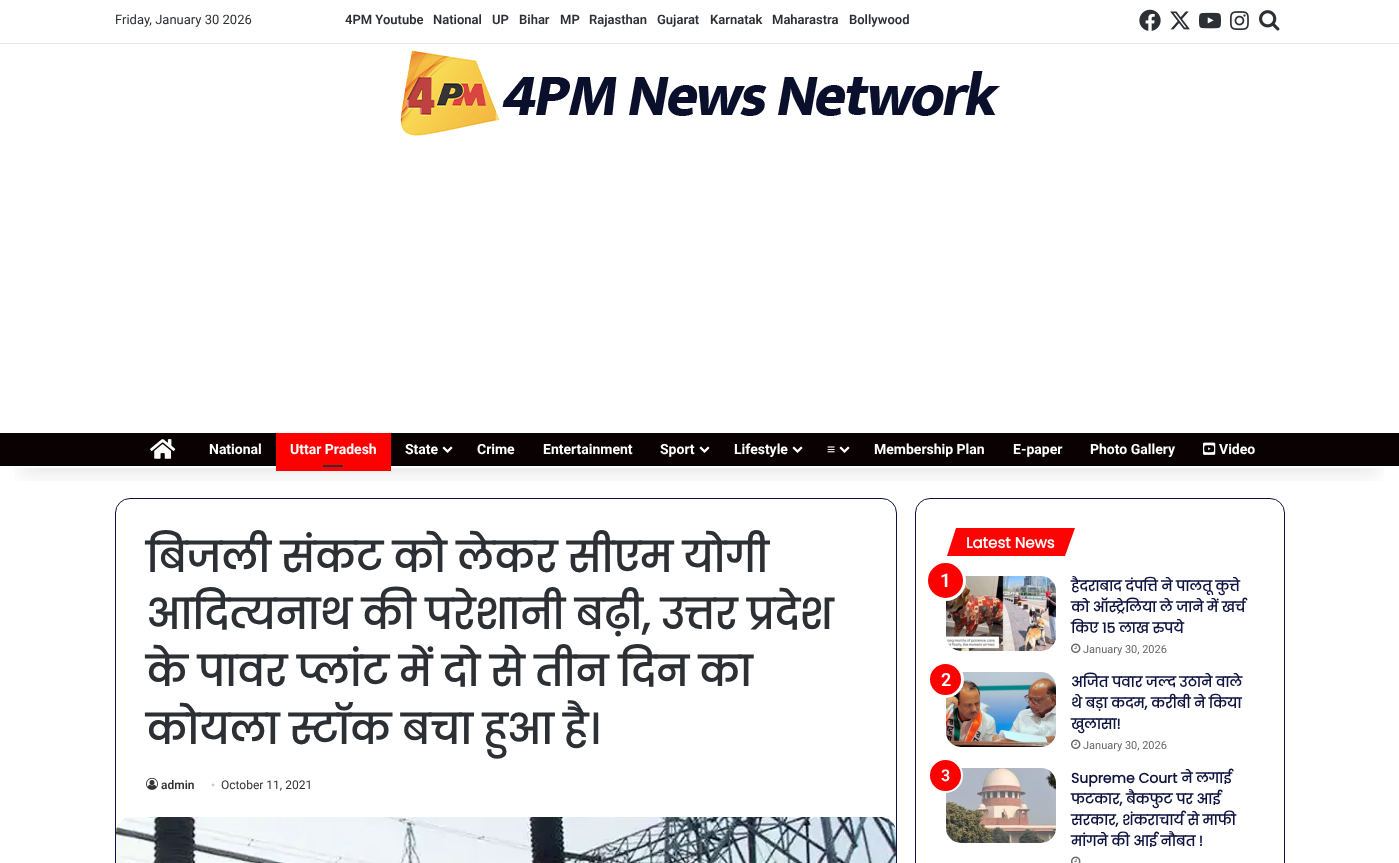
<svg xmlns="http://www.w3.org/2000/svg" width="1399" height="863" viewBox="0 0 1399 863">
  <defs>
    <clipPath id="clip1"><rect x="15" y="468" width="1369" height="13"/></clipPath>
  </defs>
  <rect width="100%" height="100%" fill="rgb(255,255,255)"/>
  <rect x="115.5" y="498.5" width="781" height="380" rx="14.5" fill="none" stroke="rgb(14,18,62)"/>
  <rect x="915.5" y="498.5" width="369" height="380" rx="14.5" fill="none" stroke="rgb(14,18,62)"/>
  <g clip-path="url(#clip1)">
    <rect x="20" y="45" width="1359" height="428" fill="rgba(0,0,0,0.1)" filter="blur(10px)"/>
  </g>
  <rect x="0" y="43" width="1399" height="1" fill="rgb(230,230,230)"/>
  <text x="115" y="24" font-family="Roboto" font-size="13" fill="rgb(44,47,52)">Friday, January 30 2026</text>
  <g font-family="Roboto" font-size="13" font-weight="600" fill="rgb(44,47,52)">
    <text x="345" y="24">4PM Youtube</text>
    <text x="433" y="24">National</text>
    <text x="492" y="24">UP</text>
    <text x="519" y="24">Bihar</text>
    <text x="560" y="24">MP</text>
    <text x="589" y="24">Rajasthan</text>
    <text x="657" y="24">Gujarat</text>
    <text x="710" y="24">Karnatak</text>
    <text x="772" y="24">Maharastra</text>
    <text x="849" y="24">Bollywood</text>
  </g>
  <image x="1139" y="9" width="22" height="22" href="pic1.png"/>
  <image x="1170" y="11" width="20" height="19" href="pic2.png"/>
  <image x="1199" y="12" width="22" height="17" href="pic3.png"/>
  <image x="1230" y="11" width="19" height="19" href="pic4.png"/>
  <image x="1259" y="10" width="21" height="21" href="pic5.png"/>
  <image x="400" y="50" width="600" height="86" href="pic6.png"/>
  <rect x="0" y="433" width="1399" height="33" fill="rgb(10,2,2)"/>
  <image x="150" y="439" width="26" height="20" href="pic7.png"/>
  <text x="209" y="454" font-family="Roboto" font-size="14" font-weight="bold" fill="rgb(255,255,255)">National</text>
  <rect x="276" y="433" width="115" height="38" fill="rgb(254,0,0)"/>
  <text x="290" y="454" font-family="Roboto" font-size="14" font-weight="bold" fill="rgb(255,255,255)">Uttar Pradesh</text>
  <rect x="323" y="465" width="20" height="2" fill="rgb(44,47,52)"/>
  <text x="405" y="454" font-family="Roboto" font-size="14" font-weight="bold" fill="rgb(255,255,255)">State</text>
  <image x="442" y="446" width="11" height="7" href="pic8.png"/>
  <g font-family="Roboto" font-size="14" font-weight="bold" fill="rgb(255,255,255)">
    <text x="477" y="454">Crime</text>
    <text x="543" y="454">Entertainment</text>
    <text x="660" y="454">Sport</text>
  </g>
  <image x="699" y="446" width="11" height="7" href="pic8.png"/>
  <text x="734" y="454" font-family="Roboto" font-size="14" font-weight="bold" fill="rgb(255,255,255)">Lifestyle</text>
  <image x="792" y="446" width="11" height="7" href="pic8.png"/>
  <text x="827" y="454" font-family="Liberation Sans" font-size="14" font-weight="bold" fill="rgb(255,255,255)">≡</text>
  <image x="839" y="446" width="11" height="7" href="pic8.png"/>
  <g font-family="Roboto" font-size="14" font-weight="bold" fill="rgb(255,255,255)">
    <text x="874" y="454">Membership Plan</text>
    <text x="1013" y="454">E-paper</text>
    <text x="1090" y="454">Photo Gallery</text>
  </g>
  <image x="1203" y="442" width="13" height="13" href="pic9.png"/>
  <text x="1219" y="454" font-family="Roboto" font-size="14" font-weight="bold" fill="rgb(255,255,255)">Video</text>
  <g font-family="Poppins" font-size="41" font-weight="bold" fill="rgb(44,47,52)">
    <text>
      <tspan x="146" y="572">बिजली संकट को लेकर सीएम योगी</tspan>
      <tspan x="146" y="629">आदित्यनाथ की परेशानी बढ़ी, उत्तर प्रदेश</tspan>
      <tspan x="146" y="686">के पावर प्लांट में दो से तीन दिन का</tspan>
      <tspan x="146" y="744">कोयला स्टॉक बचा हुआ है।</tspan>
    </text>
  </g>
  <image x="146" y="777" width="12" height="13" href="pic10.png"/>
  <text x="161" y="789" font-family="Roboto" font-size="12" font-weight="600" fill="rgb(51,51,51)">admin</text>
  <text x="211" y="789" font-family="Liberation Serif" font-size="12" fill="rgb(204,204,204)">•</text>
  <text x="221" y="789" font-family="Roboto" font-size="12" fill="rgb(51,51,51)">October 11, 2021</text>
  <image x="116" y="817" width="780" height="46" href="pic11.png"/>
  <path d="M956 528H1075L1065 556H947Z" fill="rgb(254,3,3)"/>
  <text x="966" y="548" font-family="Poppins" font-size="15" font-weight="bold" fill="rgb(255,255,255)">Latest News</text>
  <image x="946" y="576" width="110" height="75" href="pic12.png"/>
  <circle cx="945.5" cy="580.5" r="19" fill="rgb(254,0,0)" stroke="rgb(255,255,255)" stroke-width="3"/>
  <text x="940" y="587" font-family="Roboto" font-size="19" font-weight="600" fill="rgb(255,255,255)">1</text>
  <g font-family="Poppins" font-size="14" font-weight="bold" fill="rgb(14,18,62)">
    <text>
      <tspan x="1071" y="591">हैदराबाद दंपत्ति ने पालतू कुत्ते</tspan>
      <tspan x="1071" y="612">को ऑस्ट्रेलिया ले जाने में खर्च</tspan>
      <tspan x="1071" y="633">किए 15 लाख रुपये</tspan>
    </text>
  </g>
  <image x="1071" y="643" width="10" height="10" href="pic13.png"/>
  <text x="1083" y="653" font-family="Roboto" font-size="11" fill="rgb(102,102,102)">January 30, 2026</text>
  <image x="946" y="672" width="110" height="75" href="pic14.png"/>
  <circle cx="945.5" cy="679.5" r="17" fill="rgb(254,0,0)" stroke="rgb(255,255,255)" stroke-width="3"/>
  <text x="941" y="686" font-family="Roboto" font-size="18" font-weight="600" fill="rgb(255,255,255)">2</text>
  <g font-family="Poppins" font-size="14" font-weight="bold" fill="rgb(14,18,62)">
    <text>
      <tspan x="1071" y="687">अजित पवार जल्द उठाने वाले</tspan>
      <tspan x="1071" y="708">थे बड़ा कदम, करीबी ने किया</tspan>
      <tspan x="1071" y="729">खुलासा!</tspan>
    </text>
  </g>
  <image x="1071" y="739" width="10" height="10" href="pic13.png"/>
  <text x="1083" y="749" font-family="Roboto" font-size="11" fill="rgb(102,102,102)">January 30, 2026</text>
  <image x="946" y="768" width="110" height="75" href="pic15.png"/>
  <circle cx="945.5" cy="775.5" r="16.5" fill="rgb(254,0,0)" stroke="rgb(255,255,255)" stroke-width="2"/>
  <text x="941" y="781" font-family="Roboto" font-size="16" font-weight="600" fill="rgb(255,255,255)">3</text>
  <g font-family="Poppins" font-size="14" font-weight="bold" fill="rgb(14,18,62)">
    <text>
      <tspan x="1071" y="783">Supreme Court ने लगाई</tspan>
      <tspan x="1071" y="804">फटकार, बैकफुट पर आई</tspan>
      <tspan x="1071" y="825">सरकार, शंकराचार्य से माफी</tspan>
      <tspan x="1071" y="846">मांगने की आई नौबत !</tspan>
    </text>
  </g>
  <image x="1071" y="856" width="10" height="7" href="pic16.png"/>
</svg>
